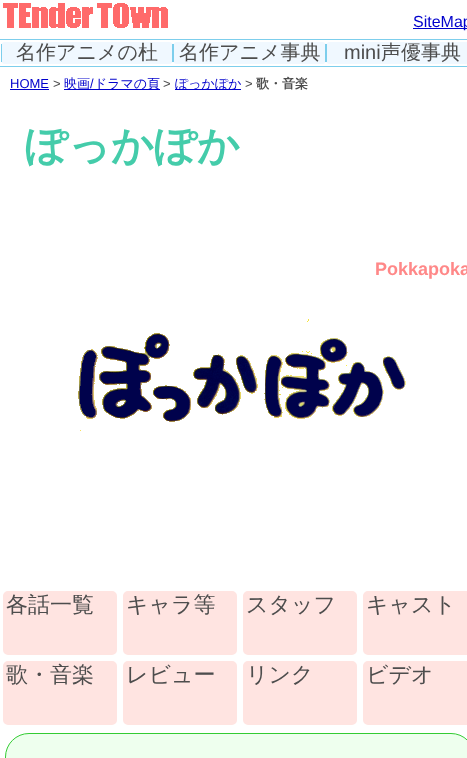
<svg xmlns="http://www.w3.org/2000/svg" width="467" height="758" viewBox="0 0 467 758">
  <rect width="100%" height="100%" fill="rgb(255,255,255)"/>
  <image x="3" y="3" width="165" height="25" href="pic1.png"/>
  <rect x="413" y="28" width="54" height="1" fill="rgb(0,0,204)"/>
  <text x="413" y="27" font-family="Liberation Sans" font-size="16" fill="rgb(0,0,204)">SiteMap</text>
  <rect x="0" y="39" width="467" height="1" fill="rgb(125,206,236)"/>
  <rect x="1" y="42" width="172" height="22" rx="4" fill="rgb(240,248,255)"/>
  <rect x="172" y="44" width="1" height="18" fill="rgb(125,206,236)"/>
  <rect x="1" y="44" width="1" height="18" fill="rgb(125,206,236)"/>
  <text x="16" y="59" font-family="WenQuanYi Zen Hei" font-size="20" font-weight="500" fill="rgb(77,77,77)">名作アニメの杜</text>
  <rect x="173" y="42" width="153" height="22" rx="4" fill="rgb(240,248,255)"/>
  <rect x="325" y="44" width="1" height="18" fill="rgb(125,206,236)"/>
  <rect x="173" y="44" width="1" height="18" fill="rgb(125,206,236)"/>
  <text x="179" y="59" font-family="WenQuanYi Zen Hei" font-size="20" font-weight="500" fill="rgb(77,77,77)">名作アニメ事典</text>
  <rect x="326" y="42" width="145" height="22" rx="4" fill="rgb(240,248,255)"/>
  <rect x="326" y="44" width="1" height="18" fill="rgb(125,206,236)"/>
  <text x="344" y="59" font-family="Liberation Sans" font-size="20" fill="rgb(77,77,77)">mini</text>
  <text x="381" y="59" font-family="WenQuanYi Zen Hei" font-size="20" font-weight="500" fill="rgb(77,77,77)">声優事典</text>
  <rect x="0" y="66" width="467" height="1" fill="rgb(125,206,236)"/>
  <text x="10" y="88" font-family="Liberation Sans" font-size="13" fill="rgb(0,0,204)">HOME</text>
  <rect x="10" y="89" width="39" height="1" fill="rgb(0,0,204)"/>
  <rect x="64" y="89" width="96" height="1" fill="rgb(0,0,204)"/>
  <text x="64" y="88" font-family="WenQuanYi Zen Hei" font-size="13" font-weight="500" fill="rgb(0,0,204)">映画 ドラマの頁</text>
  <text x="256" y="88" font-family="WenQuanYi Zen Hei" font-size="13" font-weight="bold" fill="rgb(77,77,77)">歌・音楽</text>
  <text x="53" y="88" font-family="Liberation Sans" font-size="13" fill="rgb(77,77,77)">&gt;</text>
  <text x="90" y="88" font-family="Liberation Sans" font-size="13" fill="rgb(0,0,204)">/</text>
  <text x="163" y="88" font-family="Liberation Sans" font-size="13" fill="rgb(77,77,77)">&gt;</text>
  <rect x="175" y="89" width="66" height="1" fill="rgb(0,0,204)"/>
  <text x="175" y="88" font-family="WenQuanYi Zen Hei" font-size="13" font-weight="500" fill="rgb(0,0,204)">ぽっかぽか</text>
  <text x="245" y="88" font-family="Liberation Sans" font-size="13" fill="rgb(77,77,77)">&gt;</text>
  <text x="25" y="160" font-family="WenQuanYi Zen Hei" font-size="42" font-weight="bold" fill="rgb(68,204,170)">ぽっかぽか</text>
  <text x="375" y="275" font-family="Liberation Sans" font-size="18" font-weight="bold" fill="rgb(255,136,136)">Pokkapoka</text>
  <image x="78" y="319" width="328" height="112" href="pic2.png"/>
  <rect x="1.5" y="589.5" width="117" height="67" rx="6.5" fill="rgb(255,228,225)" stroke="rgb(255,255,255)" stroke-width="3"/>
  <text x="6" y="612" font-family="WenQuanYi Zen Hei" font-size="22" font-weight="500" fill="rgb(77,77,77)">各話一覧</text>
  <rect x="121.5" y="589.5" width="117" height="67" rx="6.5" fill="rgb(255,228,225)" stroke="rgb(255,255,255)" stroke-width="3"/>
  <text x="126" y="612" font-family="WenQuanYi Zen Hei" font-size="22" font-weight="500" fill="rgb(77,77,77)">キャラ等</text>
  <rect x="241.5" y="589.5" width="117" height="67" rx="6.5" fill="rgb(255,228,225)" stroke="rgb(255,255,255)" stroke-width="3"/>
  <text x="246" y="612" font-family="WenQuanYi Zen Hei" font-size="22" font-weight="500" fill="rgb(77,77,77)">スタッフ</text>
  <rect x="361.5" y="589.5" width="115" height="67" rx="6.5" fill="rgb(255,228,225)" stroke="rgb(255,255,255)" stroke-width="3"/>
  <text x="366" y="612" font-family="WenQuanYi Zen Hei" font-size="22" font-weight="500" fill="rgb(77,77,77)">キャスト</text>
  <rect x="1.5" y="659.5" width="117" height="67" rx="6.5" fill="rgb(255,228,225)" stroke="rgb(255,255,255)" stroke-width="3"/>
  <text x="6" y="682" font-family="WenQuanYi Zen Hei" font-size="22" font-weight="500" fill="rgb(77,77,77)">歌・音楽</text>
  <rect x="121.5" y="659.5" width="117" height="67" rx="6.5" fill="rgb(255,228,225)" stroke="rgb(255,255,255)" stroke-width="3"/>
  <text x="126" y="682" font-family="WenQuanYi Zen Hei" font-size="22" font-weight="500" fill="rgb(77,77,77)">レビュー</text>
  <rect x="241.5" y="659.5" width="117" height="67" rx="6.5" fill="rgb(255,228,225)" stroke="rgb(255,255,255)" stroke-width="3"/>
  <text x="246" y="682" font-family="WenQuanYi Zen Hei" font-size="22" font-weight="500" fill="rgb(77,77,77)">リンク</text>
  <rect x="361.5" y="659.5" width="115" height="67" rx="6.5" fill="rgb(255,228,225)" stroke="rgb(255,255,255)" stroke-width="3"/>
  <text x="366" y="682" font-family="WenQuanYi Zen Hei" font-size="22" font-weight="500" fill="rgb(77,77,77)">ビデオ</text>
  <rect x="5.5" y="733.5" width="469" height="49" rx="23.5" fill="rgb(238,255,238)" stroke="rgb(51,204,51)"/>
</svg>
